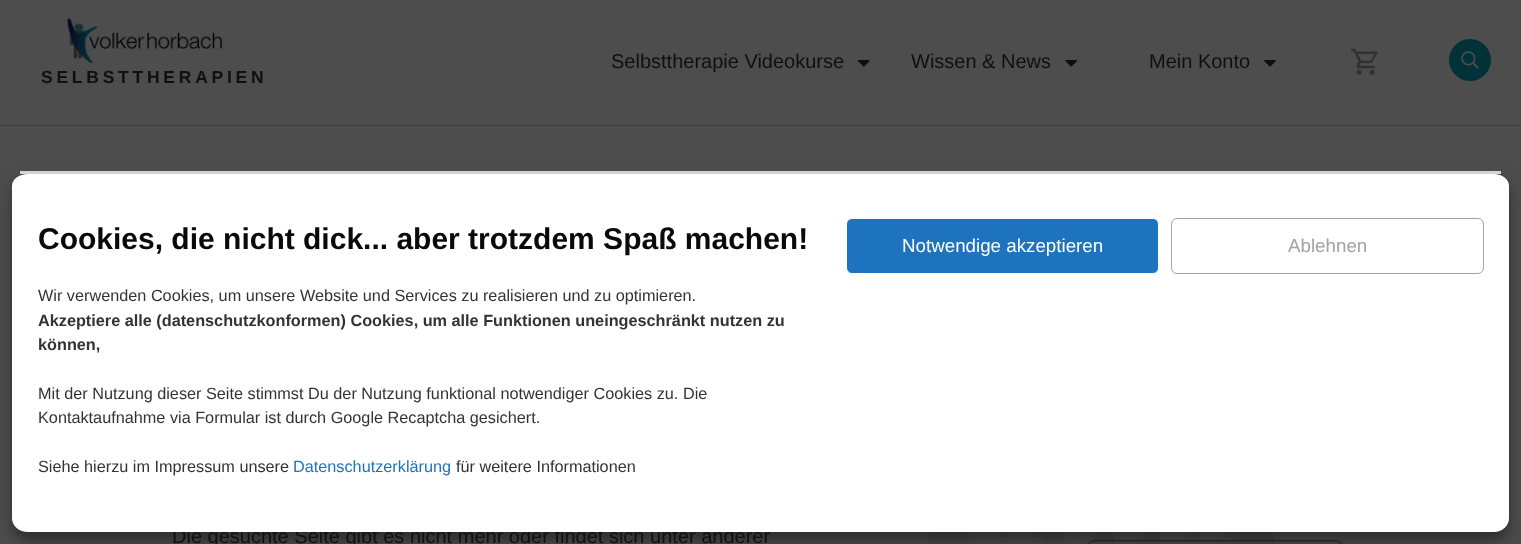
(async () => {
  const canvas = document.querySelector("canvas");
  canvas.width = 1521;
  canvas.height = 544;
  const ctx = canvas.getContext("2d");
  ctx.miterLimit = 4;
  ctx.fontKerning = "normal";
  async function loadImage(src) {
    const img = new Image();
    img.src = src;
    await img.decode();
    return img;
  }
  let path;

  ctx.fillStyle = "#4d4d4d";
  ctx.fillRect(0, 0, 1521, 544);
  ctx.fillStyle = "#3b3b3b";
  ctx.fillRect(0, 125, 1521, 1);
  ctx.drawImage(await loadImage("img/1.png"), 858, 60, 12, 7);
  ctx.drawImage(await loadImage("img/2.png"), 1065, 60, 12, 7);
  ctx.drawImage(await loadImage("img/3.png"), 1264, 60, 12, 7);
  ctx.drawImage(await loadImage("img/4.png"), 1351, 48, 27, 27);
  ctx.fillStyle = "#003238";
  ctx.beginPath();
  ctx.arc(1470, 60, 21, 0, Math.PI * 2);
  ctx.fill();
  ctx.drawImage(await loadImage("img/5.png"), 1461, 51, 18, 18);
  ctx.drawImage(await loadImage("img/6.png"), 67, 18, 156, 45);
  ctx.drawImage(await loadImage("img/7.png"), 926, 532, 418, 12);
  ctx.fillStyle = "rgba(0, 0, 0, 0.23)";
  ctx.filter = "blur(4px)";
  ctx.beginPath();
  ctx.roundRect(13, 179, 1496, 361, 15);
  ctx.fill();
  ctx.filter = "none";
  ctx.fillStyle = "rgba(0, 0, 0, 0.19)";
  ctx.filter = "blur(12.5px)";
  ctx.beginPath();
  ctx.roundRect(13, 184, 1496, 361, 15);
  ctx.fill();
  ctx.filter = "none";
  ctx.fillStyle = "#d3d3d3";
  ctx.fillRect(20, 171, 1481, 3);
  ctx.font = "20px Liberation Sans";
  ctx.fillStyle = "#101010";
  for (const [text, x, y] of [
    ["Selbsttherapie Videokurse", 611, 68],
    ["Wissen & News", 911, 68],
    ["Mein Konto", 1149, 68],
  ]) {
    ctx.fillText(text, x, y);
  }
  ctx.letterSpacing = "3.75px";
  ctx.font = "bold 17.5px Liberation Sans";
  ctx.fillText("SELBSTTHERAPIEN", 41, 83);
  ctx.letterSpacing = "0px";
  ctx.font = "20px Liberation Sans";
  ctx.fillText("Die gesuchte Seite gibt es nicht mehr oder findet sich unter anderer", 172, 543);
  ctx.fillStyle = "#ffffff";
  path = new Path2D("M28 174H1494C1502 174 1509 179 1509 186V518C1509 526 1502 532 1494 532H28C19 532 12 526 12 518V186C12 179 19 174 28 174Z");
  ctx.fill(path);
  ctx.font = "bold 30px Liberation Sans";
  ctx.fillStyle = "#0a0a0a";
  ctx.fillText("Cookies, die nicht dick... aber trotzdem Spaß machen!", 38, 249);
  ctx.font = "16.25px Liberation Sans";
  ctx.fillStyle = "#333333";
  ctx.fillText("Wir verwenden Cookies, um unsere Website und Services zu realisieren und zu optimieren.", 38, 301);
  ctx.font = "bold 16.25px Liberation Sans";
  ctx.fillText("Akzeptiere alle (datenschutzkonformen) Cookies, um alle Funktionen uneingeschränkt nutzen zu", 38, 326);
  ctx.fillText("können,", 38, 350);
  ctx.font = "16.25px Liberation Sans";
  for (const [text, x, y] of [
    ["Mit der Nutzung dieser Seite stimmst Du der Nutzung funktional notwendiger Cookies zu. Die", 38, 399],
    ["Kontaktaufnahme via Formular ist durch Google Recaptcha gesichert.", 38, 423],
    ["Siehe hierzu im Impressum unsere", 38, 472],
  ]) {
    ctx.fillText(text, x, y);
  }
  ctx.fillStyle = "#1e73be";
  ctx.fillText("Datenschutzerklärung", 293, 472);
  ctx.fillStyle = "#333333";
  ctx.fillText("für weitere Informationen", 456, 472);
  ctx.fillStyle = "#1e73be";
  ctx.beginPath();
  ctx.roundRect(846.5, 218.5, 312, 55, 5.5);
  ctx.fill();
  ctx.strokeStyle = "#ffffff";
  ctx.stroke();
  ctx.font = "18.75px Liberation Sans";
  ctx.fillStyle = "#ffffff";
  ctx.fillText("Notwendige akzeptieren", 902, 252);
  ctx.beginPath();
  ctx.roundRect(1171.5, 218.5, 312, 55, 5.5);
  ctx.strokeStyle = "#a3a3a3";
  ctx.stroke();
  ctx.fillStyle = "#a3a3a3";
  ctx.fillText("Ablehnen", 1288, 252);
})();
